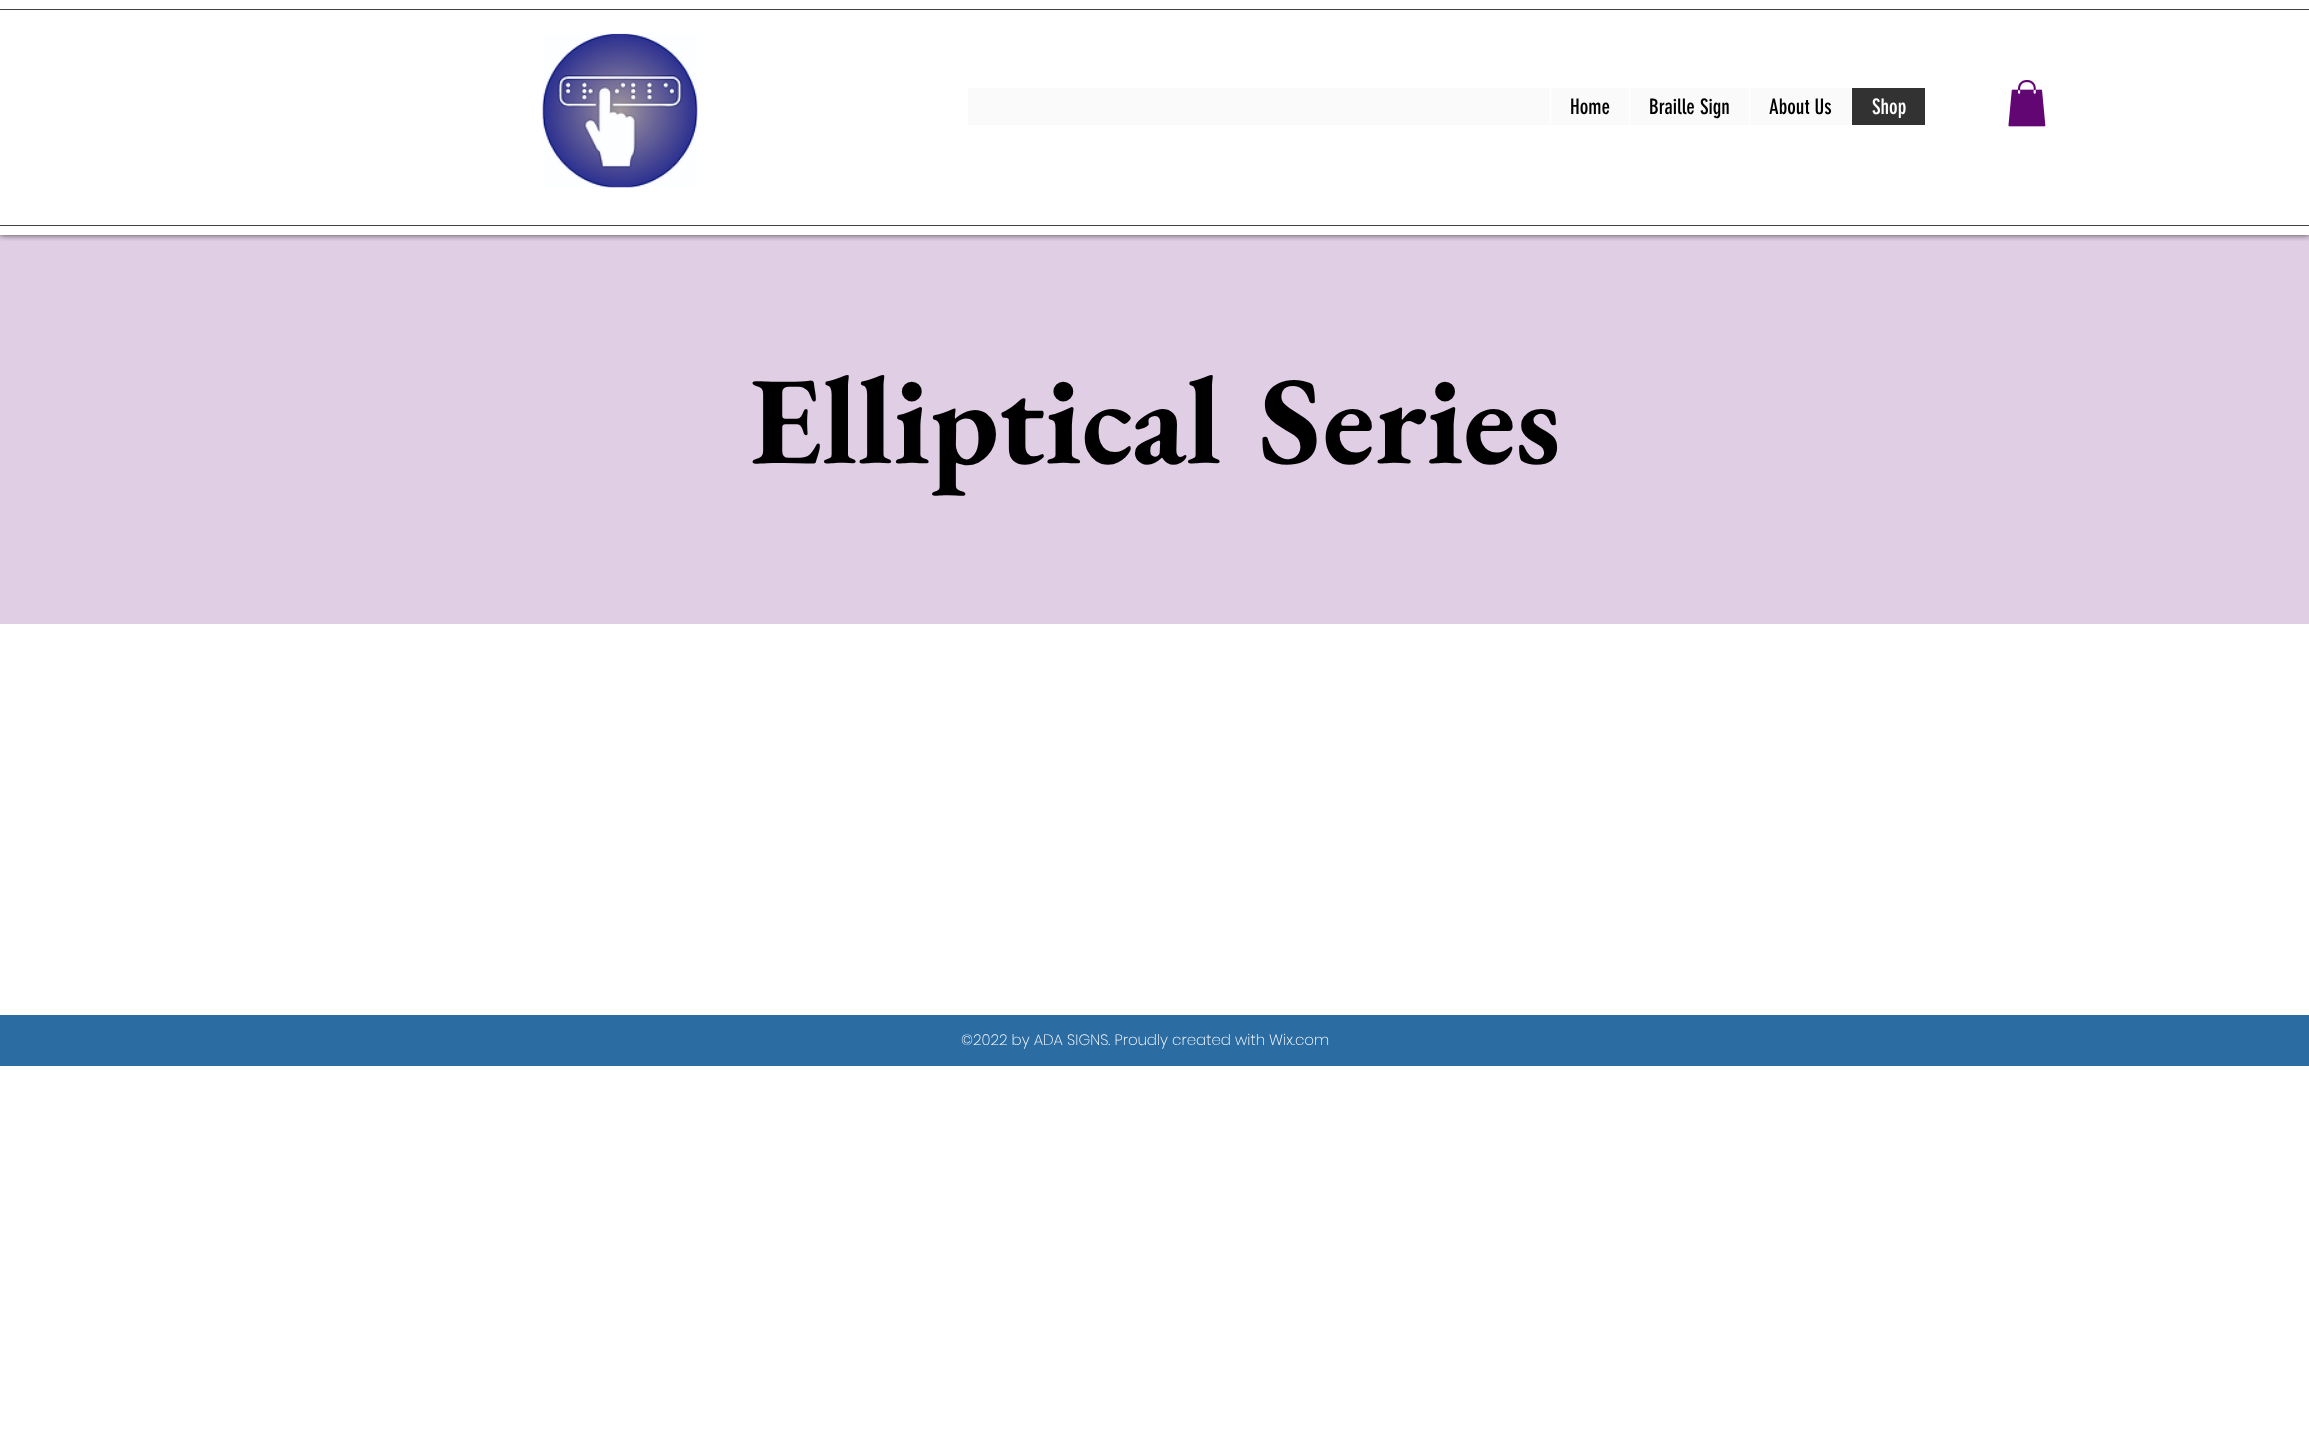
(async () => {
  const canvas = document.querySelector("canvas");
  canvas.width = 2309;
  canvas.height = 1447;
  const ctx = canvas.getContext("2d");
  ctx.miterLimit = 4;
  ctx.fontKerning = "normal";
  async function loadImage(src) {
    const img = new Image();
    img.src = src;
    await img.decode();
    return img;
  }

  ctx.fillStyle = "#ffffff";
  ctx.fillRect(0, 0, 2309, 1447);
  ctx.fillStyle = "#e0cee4";
  ctx.fillRect(0, 235, 2309, 389);
  ctx.save();
  ctx.beginPath();
  ctx.rect(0, 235, 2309, 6);
  ctx.clip();
  ctx.fillStyle = "rgba(0, 0, 0, 0.7)";
  ctx.filter = "blur(3px)";
  ctx.beginPath();
  ctx.rect(0, 0, 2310, 235);
  ctx.fill();
  ctx.filter = "none";
  ctx.restore();
  ctx.fillStyle = "#404040";
  ctx.fillRect(0, 9, 2309, 1);
  ctx.fillRect(0, 225, 2309, 1);
  ctx.drawImage(await loadImage("img/1.png"), 542, 33, 156, 155);
  for (const [x, y, w, h, color] of [
    [968, 88, 883, 37, "#fafafa"],
    [1550, 88, 1, 37, "#ffffff"],
    [1629, 88, 1, 37, "#ffffff"],
    [1749, 88, 1, 37, "#ffffff"],
    [1852, 88, 73, 37, "#323232"],
  ]) {
    ctx.fillStyle = color;
    ctx.fillRect(x, y, w, h);
  }
  ctx.drawImage(await loadImage("img/2.png"), 2008, 80, 38, 47);
  ctx.fillStyle = "#2b6ca3";
  ctx.fillRect(0, 1015, 2309, 51);
  ctx.font = "21px 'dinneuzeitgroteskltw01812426'";
  ctx.fillStyle = "#000000";
  for (const [text, x, y] of [
    ["Home", 1570, 114],
    ["Braille Sign", 1649, 114],
    ["About Us", 1769, 114],
  ]) {
    ctx.fillText(text, x, y);
  }
  ctx.fillStyle = "#ffffff";
  ctx.fillText("Shop", 1872, 114);
  ctx.font = "bold 125px EB Garamond";
  ctx.fillStyle = "#000000";
  ctx.fillText("Elliptical Series", 750, 463);
  ctx.font = "200 15px Poppins";
  ctx.fillStyle = "#ffffff";
  ctx.fillText("©2022 by ADA SIGNS. Proudly created with Wix.com", 961, 1045);
})();
